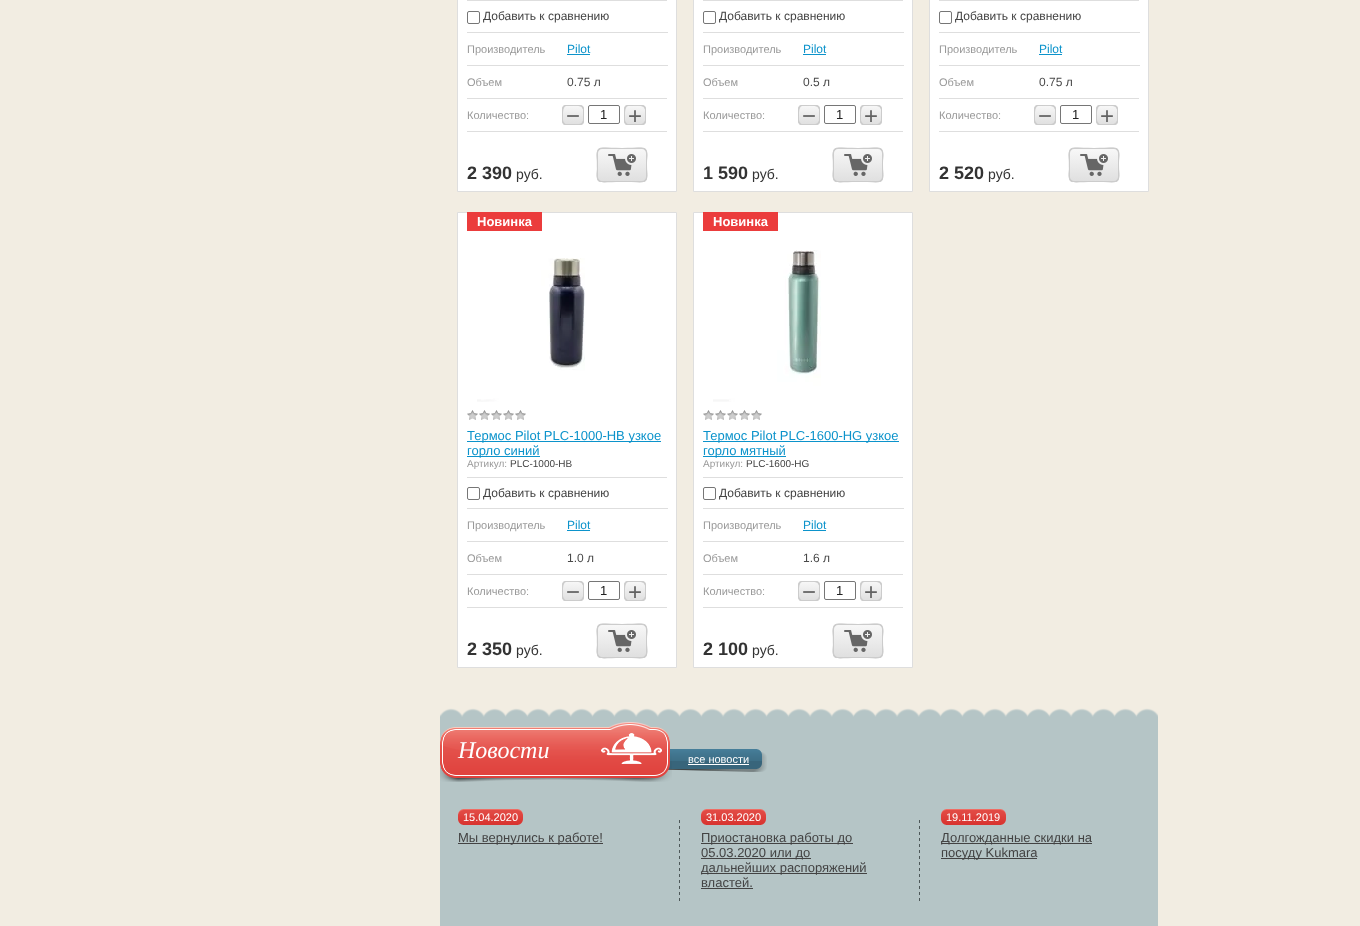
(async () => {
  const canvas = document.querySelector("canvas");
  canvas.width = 1360;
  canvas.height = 926;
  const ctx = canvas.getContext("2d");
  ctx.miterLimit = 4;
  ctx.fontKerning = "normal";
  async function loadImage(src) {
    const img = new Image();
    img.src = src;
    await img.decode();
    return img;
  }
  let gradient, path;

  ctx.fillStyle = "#f2ede2";
  ctx.fillRect(0, 0, 1360, 926);
  ctx.fillStyle = "#ffffff";
  ctx.beginPath();
  ctx.rect(457.5, -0.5, 219, 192);
  ctx.fill();
  ctx.strokeStyle = "#dedede";
  ctx.stroke();
  ctx.fillStyle = "#dedede";
  ctx.fillRect(467, 0, 200, 1);
  ctx.beginPath();
  ctx.roundRect(467.5, 11.5, 12, 12, 1.5);
  ctx.strokeStyle = "#767676";
  ctx.stroke();
  for (const [x, y, w, h, color] of [
    [467, 32, 201, 1, "#dedede"],
    [567, 54, 23, 1, "#0c93cb"],
    [467, 65, 201, 1, "#dedede"],
    [467, 98, 200, 1, "#dedede"],
  ]) {
    ctx.fillStyle = color;
    ctx.fillRect(x, y, w, h);
  }
  gradient = ctx.createLinearGradient(573, 105, 573, 125);
  gradient.addColorStop(0, "#f8f8f8");
  gradient.addColorStop(1, "#dfdfdf");
  ctx.fillStyle = gradient;
  ctx.beginPath();
  ctx.roundRect(562, 105, 22, 20, 4);
  ctx.fill();
  ctx.fillStyle = "#cccccc";
  path = new Path2D("M564 105.5C563 106.5 562 107.5 562 109V121C562 123 564 125 566 125H580C581.5 125 583 124 583.5 123C581 125 575.5 124 573 124H565.5L564.5 123C563.5 122 563 121 563 119.5V109C563 108 563.5 106.5 564 105.5Z");
  ctx.fill(path);
  path = new Path2D("M565 106C568.5 106 579.5 105 581.5 107L583 109.5C583 111 583 119.5 583 122C583 123 582.5 124 582 124.5C583 124 584 122.5 584 121V109C584 107 582 105 580 105H566C564.5 105 563.5 105.5 562.5 106.5C563.5 106.5 564 106 565 106Z");
  ctx.fill(path);
  path = new Path2D("M562.5 123.5C563.5 124.5 564.5 125 566 125H580C582 125 584 123 584 121V109C584 107.5 583 106 582 105.5C582.5 106 583 107 583 108C583 110.5 583 119 583 120.5L581.5 123C579.5 125 574 124 571 124C569 124 564.5 124.5 562.5 123.5Z");
  ctx.fill(path);
  path = new Path2D("M567 106C570 106 581 105 583.5 107C583 106 581.5 105 580 105H566C564 105 562 107 562 109V121C562 122.5 563 123.5 564 124.5C562.5 122.5 562.5 110 564 108C564.5 106.5 565.5 106 567 106Z");
  ctx.fill(path);
  ctx.beginPath();
  ctx.roundRect(588.5, 105.5, 31, 18, 1.5);
  ctx.stroke();
  gradient = ctx.createLinearGradient(635, 105, 635, 125);
  gradient.addColorStop(0, "#f8f8f8");
  gradient.addColorStop(1, "#dfdfdf");
  ctx.fillStyle = gradient;
  ctx.beginPath();
  ctx.roundRect(624, 105, 22, 20, 4);
  ctx.fill();
  ctx.fillStyle = "#cccccc";
  path = new Path2D("M626 105.5C625 106.5 624 107.5 624 109V121C624 123 626 125 628 125H642C643.5 125 645 124 645.5 123C643 125 637.5 124 635 124H627.5L626.5 123C625.5 122 625 121 625 119.5V109C625 108 625.5 106.5 626 105.5Z");
  ctx.fill(path);
  path = new Path2D("M627 106C630.5 106 641.5 105 643.5 107L645 109.5C645 111 645 119.5 645 122C645 123 644.5 124 644 124.5C645 124 646 122.5 646 121V109C646 107 644 105 642 105H628C626.5 105 625.5 105.5 624.5 106.5C625.5 106.5 626 106 627 106Z");
  ctx.fill(path);
  path = new Path2D("M624.5 123.5C625.5 124.5 626.5 125 628 125H642C644 125 646 123 646 121V109C646 107.5 645 106 644 105.5C644.5 106 645 107 645 108C645 110.5 645 119 645 120.5L643.5 123C641.5 125 636 124 633 124C631 124 626.5 124.5 624.5 123.5Z");
  ctx.fill(path);
  path = new Path2D("M629 106C632 106 643 105 645.5 107C645 106 643.5 105 642 105H628C626 105 624 107 624 109V121C624 122.5 625 123.5 626 124.5C624.5 122.5 624.5 110 626 108C626.5 106.5 627.5 106 629 106Z");
  ctx.fill(path);
  ctx.fillStyle = "#dedede";
  ctx.fillRect(467, 131, 200, 1);
  gradient = ctx.createLinearGradient(622, 148, 622, 182);
  gradient.addColorStop(0, "#f8f8f8");
  gradient.addColorStop(1, "#dfdfdf");
  ctx.fillStyle = gradient;
  ctx.beginPath();
  ctx.roundRect(597, 148, 50, 34, 4);
  ctx.fill();
  ctx.fillStyle = "#cccccc";
  path = new Path2D("M599 149C595 151 597 158 597 161C597 187 593 182 622 182H636C639 182 645 183 646 180L644 181H602C600 181 598 179 598 177V151Z");
  ctx.fill(path);
  path = new Path2D("M600 149H642C644 149 646 151 646 153V179L645 181C649 179 647 172 647 169C647 143 651 148 622 148H608C605 148 599 147 598 150Z");
  ctx.fill(path);
  path = new Path2D("M598 180C599 183 605 182 608 182H622C651 182 647 187 647 161C647 158 649 151 645 149L646 151V177C646 179 644 181 642 181H600Z");
  ctx.fill(path);
  path = new Path2D("M602 149H644L646 150C645 147 639 148 636 148H622C593 148 597 143 597 169C597 172 595 179 599 181L598 179V153C598 151 600 149 602 149Z");
  ctx.fill(path);
  ctx.drawImage(await loadImage("img/1.png"), 608, 154, 28, 22);
  ctx.fillStyle = "#ffffff";
  ctx.beginPath();
  ctx.rect(693.5, -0.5, 219, 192);
  ctx.fill();
  ctx.strokeStyle = "#dedede";
  ctx.stroke();
  ctx.fillStyle = "#dedede";
  ctx.fillRect(703, 0, 200, 1);
  ctx.beginPath();
  ctx.roundRect(703.5, 11.5, 12, 12, 1.5);
  ctx.strokeStyle = "#767676";
  ctx.stroke();
  for (const [x, y, w, h, color] of [
    [703, 32, 201, 1, "#dedede"],
    [803, 54, 23, 1, "#0c93cb"],
    [703, 65, 201, 1, "#dedede"],
    [703, 98, 200, 1, "#dedede"],
  ]) {
    ctx.fillStyle = color;
    ctx.fillRect(x, y, w, h);
  }
  gradient = ctx.createLinearGradient(809, 105, 809, 125);
  gradient.addColorStop(0, "#f8f8f8");
  gradient.addColorStop(1, "#dfdfdf");
  ctx.fillStyle = gradient;
  ctx.beginPath();
  ctx.roundRect(798, 105, 22, 20, 4);
  ctx.fill();
  ctx.fillStyle = "#cccccc";
  path = new Path2D("M800 105.5C799 106.5 798 107.5 798 109V121C798 123 800 125 802 125H816C817.5 125 819 124 819.5 123C817 125 811.5 124 809 124H801.5L800.5 123C799.5 122 799 121 799 119.5V109C799 108 799.5 106.5 800 105.5Z");
  ctx.fill(path);
  path = new Path2D("M801 106C804.5 106 815.5 105 817.5 107L819 109.5C819 111 819 119.5 819 122C819 123 818.5 124 818 124.5C819 124 820 122.5 820 121V109C820 107 818 105 816 105H802C800.5 105 799.5 105.5 798.5 106.5C799.5 106.5 800 106 801 106Z");
  ctx.fill(path);
  path = new Path2D("M798.5 123.5C799.5 124.5 800.5 125 802 125H816C818 125 820 123 820 121V109C820 107.5 819 106 818 105.5C818.5 106 819 107 819 108C819 110.5 819 119 819 120.5L817.5 123C815.5 125 810 124 807 124C805 124 800.5 124.5 798.5 123.5Z");
  ctx.fill(path);
  path = new Path2D("M803 106C806 106 817 105 819.5 107C819 106 817.5 105 816 105H802C800 105 798 107 798 109V121C798 122.5 799 123.5 800 124.5C798.5 122.5 798.5 110 800 108C800.5 106.5 801.5 106 803 106Z");
  ctx.fill(path);
  ctx.beginPath();
  ctx.roundRect(824.5, 105.5, 31, 18, 1.5);
  ctx.stroke();
  gradient = ctx.createLinearGradient(871, 105, 871, 125);
  gradient.addColorStop(0, "#f8f8f8");
  gradient.addColorStop(1, "#dfdfdf");
  ctx.fillStyle = gradient;
  ctx.beginPath();
  ctx.roundRect(860, 105, 22, 20, 4);
  ctx.fill();
  ctx.fillStyle = "#cccccc";
  path = new Path2D("M862 105.5C861 106.5 860 107.5 860 109V121C860 123 862 125 864 125H878C879.5 125 881 124 881.5 123C879 125 873.5 124 871 124H863.5L862.5 123C861.5 122 861 121 861 119.5V109C861 108 861.5 106.5 862 105.5Z");
  ctx.fill(path);
  path = new Path2D("M863 106C866.5 106 877.5 105 879.5 107L881 109.5C881 111 881 119.5 881 122C881 123 880.5 124 880 124.5C881 124 882 122.5 882 121V109C882 107 880 105 878 105H864C862.5 105 861.5 105.5 860.5 106.5C861.5 106.5 862 106 863 106Z");
  ctx.fill(path);
  path = new Path2D("M860.5 123.5C861.5 124.5 862.5 125 864 125H878C880 125 882 123 882 121V109C882 107.5 881 106 880 105.5C880.5 106 881 107 881 108C881 110.5 881 119 881 120.5L879.5 123C877.5 125 872 124 869 124C867 124 862.5 124.5 860.5 123.5Z");
  ctx.fill(path);
  path = new Path2D("M865 106C868 106 879 105 881.5 107C881 106 879.5 105 878 105H864C862 105 860 107 860 109V121C860 122.5 861 123.5 862 124.5C860.5 122.5 860.5 110 862 108C862.5 106.5 863.5 106 865 106Z");
  ctx.fill(path);
  ctx.fillStyle = "#dedede";
  ctx.fillRect(703, 131, 200, 1);
  gradient = ctx.createLinearGradient(858, 148, 858, 182);
  gradient.addColorStop(0, "#f8f8f8");
  gradient.addColorStop(1, "#dfdfdf");
  ctx.fillStyle = gradient;
  ctx.beginPath();
  ctx.roundRect(833, 148, 50, 34, 4);
  ctx.fill();
  ctx.fillStyle = "#cccccc";
  path = new Path2D("M835 149C831 151 833 158 833 161C833 187 829 182 858 182H872C875 182 881 183 882 180L880 181H838C836 181 834 179 834 177V151Z");
  ctx.fill(path);
  path = new Path2D("M836 149H878C880 149 882 151 882 153V179L881 181C885 179 883 172 883 169C883 143 887 148 858 148H844C841 148 835 147 834 150Z");
  ctx.fill(path);
  path = new Path2D("M834 180C835 183 841 182 844 182H858C887 182 883 187 883 161C883 158 885 151 881 149L882 151V177C882 179 880 181 878 181H836Z");
  ctx.fill(path);
  path = new Path2D("M838 149H880L882 150C881 147 875 148 872 148H858C829 148 833 143 833 169C833 172 831 179 835 181L834 179V153C834 151 836 149 838 149Z");
  ctx.fill(path);
  ctx.drawImage(await loadImage("img/1.png"), 844, 154, 28, 22);
  ctx.fillStyle = "#ffffff";
  ctx.beginPath();
  ctx.rect(929.5, -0.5, 219, 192);
  ctx.fill();
  ctx.strokeStyle = "#dedede";
  ctx.stroke();
  ctx.fillStyle = "#dedede";
  ctx.fillRect(939, 0, 200, 1);
  ctx.beginPath();
  ctx.roundRect(939.5, 11.5, 12, 12, 1.5);
  ctx.strokeStyle = "#767676";
  ctx.stroke();
  for (const [x, y, w, h, color] of [
    [939, 32, 201, 1, "#dedede"],
    [1039, 54, 23, 1, "#0c93cb"],
    [939, 65, 201, 1, "#dedede"],
    [939, 98, 200, 1, "#dedede"],
  ]) {
    ctx.fillStyle = color;
    ctx.fillRect(x, y, w, h);
  }
  gradient = ctx.createLinearGradient(1045, 105, 1045, 125);
  gradient.addColorStop(0, "#f8f8f8");
  gradient.addColorStop(1, "#dfdfdf");
  ctx.fillStyle = gradient;
  ctx.beginPath();
  ctx.roundRect(1034, 105, 22, 20, 4);
  ctx.fill();
  ctx.fillStyle = "#cccccc";
  path = new Path2D("M1036 105.5C1035 106.5 1034 107.5 1034 109V121C1034 123 1036 125 1038 125H1052C1053.5 125 1055 124 1055.5 123C1053 125 1047.5 124 1045 124H1037.5L1036.5 123C1035.5 122 1035 121 1035 119.5V109C1035 108 1035.5 106.5 1036 105.5Z");
  ctx.fill(path);
  path = new Path2D("M1037 106C1040.5 106 1051.5 105 1053.5 107L1055 109.5C1055 111 1055 119.5 1055 122C1055 123 1054.5 124 1054 124.5C1055 124 1056 122.5 1056 121V109C1056 107 1054 105 1052 105H1038C1036.5 105 1035.5 105.5 1034.5 106.5C1035.5 106.5 1036 106 1037 106Z");
  ctx.fill(path);
  path = new Path2D("M1034.5 123.5C1035.5 124.5 1036.5 125 1038 125H1052C1054 125 1056 123 1056 121V109C1056 107.5 1055 106 1054 105.5C1054.5 106 1055 107 1055 108C1055 110.5 1055 119 1055 120.5L1053.5 123C1051.5 125 1046 124 1043 124C1041 124 1036.5 124.5 1034.5 123.5Z");
  ctx.fill(path);
  path = new Path2D("M1039 106C1042 106 1053 105 1055.5 107C1055 106 1053.5 105 1052 105H1038C1036 105 1034 107 1034 109V121C1034 122.5 1035 123.5 1036 124.5C1034.5 122.5 1034.5 110 1036 108C1036.5 106.5 1037.5 106 1039 106Z");
  ctx.fill(path);
  ctx.beginPath();
  ctx.roundRect(1060.5, 105.5, 31, 18, 1.5);
  ctx.stroke();
  gradient = ctx.createLinearGradient(1107, 105, 1107, 125);
  gradient.addColorStop(0, "#f8f8f8");
  gradient.addColorStop(1, "#dfdfdf");
  ctx.fillStyle = gradient;
  ctx.beginPath();
  ctx.roundRect(1096, 105, 22, 20, 4);
  ctx.fill();
  ctx.fillStyle = "#cccccc";
  path = new Path2D("M1098 105.5C1097 106.5 1096 107.5 1096 109V121C1096 123 1098 125 1100 125H1114C1115.5 125 1117 124 1117.5 123C1115 125 1109.5 124 1107 124H1099.5L1098.5 123C1097.5 122 1097 121 1097 119.5V109C1097 108 1097.5 106.5 1098 105.5Z");
  ctx.fill(path);
  path = new Path2D("M1099 106C1102.5 106 1113.5 105 1115.5 107L1117 109.5C1117 111 1117 119.5 1117 122C1117 123 1116.5 124 1116 124.5C1117 124 1118 122.5 1118 121V109C1118 107 1116 105 1114 105H1100C1098.5 105 1097.5 105.5 1096.5 106.5C1097.5 106.5 1098 106 1099 106Z");
  ctx.fill(path);
  path = new Path2D("M1096.5 123.5C1097.5 124.5 1098.5 125 1100 125H1114C1116 125 1118 123 1118 121V109C1118 107.5 1117 106 1116 105.5C1116.5 106 1117 107 1117 108C1117 110.5 1117 119 1117 120.5L1115.5 123C1113.5 125 1108 124 1105 124C1103 124 1098.5 124.5 1096.5 123.5Z");
  ctx.fill(path);
  path = new Path2D("M1101 106C1104 106 1115 105 1117.5 107C1117 106 1115.5 105 1114 105H1100C1098 105 1096 107 1096 109V121C1096 122.5 1097 123.5 1098 124.5C1096.5 122.5 1096.5 110 1098 108C1098.5 106.5 1099.5 106 1101 106Z");
  ctx.fill(path);
  ctx.fillStyle = "#dedede";
  ctx.fillRect(939, 131, 200, 1);
  gradient = ctx.createLinearGradient(1094, 148, 1094, 182);
  gradient.addColorStop(0, "#f8f8f8");
  gradient.addColorStop(1, "#dfdfdf");
  ctx.fillStyle = gradient;
  ctx.beginPath();
  ctx.roundRect(1069, 148, 50, 34, 4);
  ctx.fill();
  ctx.fillStyle = "#cccccc";
  path = new Path2D("M1071 149C1067 151 1069 158 1069 161C1069 187 1065 182 1094 182H1108C1111 182 1117 183 1118 180L1116 181H1074C1072 181 1070 179 1070 177V151Z");
  ctx.fill(path);
  path = new Path2D("M1072 149H1114C1116 149 1118 151 1118 153V179L1117 181C1121 179 1119 172 1119 169C1119 143 1123 148 1094 148H1080C1077 148 1071 147 1070 150Z");
  ctx.fill(path);
  path = new Path2D("M1070 180C1071 183 1077 182 1080 182H1094C1123 182 1119 187 1119 161C1119 158 1121 151 1117 149L1118 151V177C1118 179 1116 181 1114 181H1072Z");
  ctx.fill(path);
  path = new Path2D("M1074 149H1116L1118 150C1117 147 1111 148 1108 148H1094C1065 148 1069 143 1069 169C1069 172 1067 179 1071 181L1070 179V153C1070 151 1072 149 1074 149Z");
  ctx.fill(path);
  ctx.drawImage(await loadImage("img/1.png"), 1080, 154, 28, 22);
  ctx.fillStyle = "#ffffff";
  ctx.beginPath();
  ctx.rect(457.5, 212.5, 219, 455);
  ctx.fill();
  ctx.strokeStyle = "#dedede";
  ctx.stroke();
  ctx.fillStyle = "#eb3c3c";
  ctx.fillRect(467, 212, 75, 19);
  ctx.drawImage(await loadImage("img/2.png"), 477, 258, 108, 144);
  ctx.drawImage(await loadImage("img/3.png"), 467, 410, 59, 10);
  for (const [x, y, w, h, color] of [
    [467, 441, 194, 1, "#0c93cb"],
    [467, 456, 73, 1, "#0c93cb"],
    [467, 477, 200, 1, "#dedede"],
  ]) {
    ctx.fillStyle = color;
    ctx.fillRect(x, y, w, h);
  }
  ctx.beginPath();
  ctx.roundRect(467.5, 487.5, 12, 12, 1.5);
  ctx.strokeStyle = "#767676";
  ctx.stroke();
  for (const [x, y, w, h, color] of [
    [467, 508, 201, 1, "#dedede"],
    [567, 530, 23, 1, "#0c93cb"],
    [467, 541, 201, 1, "#dedede"],
    [467, 574, 200, 1, "#dedede"],
  ]) {
    ctx.fillStyle = color;
    ctx.fillRect(x, y, w, h);
  }
  gradient = ctx.createLinearGradient(573, 581, 573, 601);
  gradient.addColorStop(0, "#f8f8f8");
  gradient.addColorStop(1, "#dfdfdf");
  ctx.fillStyle = gradient;
  ctx.beginPath();
  ctx.roundRect(562, 581, 22, 20, 4);
  ctx.fill();
  ctx.fillStyle = "#cccccc";
  path = new Path2D("M564 581.5C563 582.5 562 583.5 562 585V597C562 599 564 601 566 601H580C581.5 601 583 600 583.5 599C581 601 575.5 600 573 600H565.5L564.5 599C563.5 598 563 597 563 595.5V585C563 584 563.5 582.5 564 581.5Z");
  ctx.fill(path);
  path = new Path2D("M565 582C568.5 582 579.5 581 581.5 583L583 585.5C583 587 583 595.5 583 598C583 599 582.5 600 582 600.5C583 600 584 598.5 584 597V585C584 583 582 581 580 581H566C564.5 581 563.5 581.5 562.5 582.5C563.5 582.5 564 582 565 582Z");
  ctx.fill(path);
  path = new Path2D("M562.5 599.5C563.5 600.5 564.5 601 566 601H580C582 601 584 599 584 597V585C584 583.5 583 582 582 581.5C582.5 582 583 583 583 584C583 586.5 583 595 583 596.5L581.5 599C579.5 601 574 600 571 600C569 600 564.5 600.5 562.5 599.5Z");
  ctx.fill(path);
  path = new Path2D("M567 582C570 582 581 581 583.5 583C583 582 581.5 581 580 581H566C564 581 562 583 562 585V597C562 598.5 563 599.5 564 600.5C562.5 598.5 562.5 586 564 584C564.5 582.5 565.5 582 567 582Z");
  ctx.fill(path);
  ctx.beginPath();
  ctx.roundRect(588.5, 581.5, 31, 18, 1.5);
  ctx.stroke();
  gradient = ctx.createLinearGradient(635, 581, 635, 601);
  gradient.addColorStop(0, "#f8f8f8");
  gradient.addColorStop(1, "#dfdfdf");
  ctx.fillStyle = gradient;
  ctx.beginPath();
  ctx.roundRect(624, 581, 22, 20, 4);
  ctx.fill();
  ctx.fillStyle = "#cccccc";
  path = new Path2D("M626 581.5C625 582.5 624 583.5 624 585V597C624 599 626 601 628 601H642C643.5 601 645 600 645.5 599C643 601 637.5 600 635 600H627.5L626.5 599C625.5 598 625 597 625 595.5V585C625 584 625.5 582.5 626 581.5Z");
  ctx.fill(path);
  path = new Path2D("M627 582C630.5 582 641.5 581 643.5 583L645 585.5C645 587 645 595.5 645 598C645 599 644.5 600 644 600.5C645 600 646 598.5 646 597V585C646 583 644 581 642 581H628C626.5 581 625.5 581.5 624.5 582.5C625.5 582.5 626 582 627 582Z");
  ctx.fill(path);
  path = new Path2D("M624.5 599.5C625.5 600.5 626.5 601 628 601H642C644 601 646 599 646 597V585C646 583.5 645 582 644 581.5C644.5 582 645 583 645 584C645 586.5 645 595 645 596.5L643.5 599C641.5 601 636 600 633 600C631 600 626.5 600.5 624.5 599.5Z");
  ctx.fill(path);
  path = new Path2D("M629 582C632 582 643 581 645.5 583C645 582 643.5 581 642 581H628C626 581 624 583 624 585V597C624 598.5 625 599.5 626 600.5C624.5 598.5 624.5 586 626 584C626.5 582.5 627.5 582 629 582Z");
  ctx.fill(path);
  ctx.fillStyle = "#dedede";
  ctx.fillRect(467, 607, 200, 1);
  gradient = ctx.createLinearGradient(622, 624, 622, 658);
  gradient.addColorStop(0, "#f8f8f8");
  gradient.addColorStop(1, "#dfdfdf");
  ctx.fillStyle = gradient;
  ctx.beginPath();
  ctx.roundRect(597, 624, 50, 34, 4);
  ctx.fill();
  ctx.fillStyle = "#cccccc";
  path = new Path2D("M599 625C595 627 597 634 597 637C597 663 593 658 622 658H636C639 658 645 659 646 656L644 657H602C600 657 598 655 598 653V627Z");
  ctx.fill(path);
  path = new Path2D("M600 625H642C644 625 646 627 646 629V655L645 657C649 655 647 648 647 645C647 619 651 624 622 624H608C605 624 599 623 598 626Z");
  ctx.fill(path);
  path = new Path2D("M598 656C599 659 605 658 608 658H622C651 658 647 663 647 637C647 634 649 627 645 625L646 627V653C646 655 644 657 642 657H600Z");
  ctx.fill(path);
  path = new Path2D("M602 625H644L646 626C645 623 639 624 636 624H622C593 624 597 619 597 645C597 648 595 655 599 657L598 655V629C598 627 600 625 602 625Z");
  ctx.fill(path);
  ctx.drawImage(await loadImage("img/1.png"), 608, 630, 28, 22);
  ctx.fillStyle = "#ffffff";
  ctx.beginPath();
  ctx.rect(693.5, 212.5, 219, 455);
  ctx.fill();
  ctx.strokeStyle = "#dedede";
  ctx.stroke();
  ctx.fillStyle = "#eb3c3c";
  ctx.fillRect(703, 212, 75, 19);
  ctx.drawImage(await loadImage("img/4.png"), 713, 250, 108, 152);
  ctx.drawImage(await loadImage("img/3.png"), 703, 410, 59, 10);
  for (const [x, y, w, h, color] of [
    [703, 441, 196, 1, "#0c93cb"],
    [703, 456, 83, 1, "#0c93cb"],
    [703, 477, 200, 1, "#dedede"],
  ]) {
    ctx.fillStyle = color;
    ctx.fillRect(x, y, w, h);
  }
  ctx.beginPath();
  ctx.roundRect(703.5, 487.5, 12, 12, 1.5);
  ctx.strokeStyle = "#767676";
  ctx.stroke();
  for (const [x, y, w, h, color] of [
    [703, 508, 201, 1, "#dedede"],
    [803, 530, 23, 1, "#0c93cb"],
    [703, 541, 201, 1, "#dedede"],
    [703, 574, 200, 1, "#dedede"],
  ]) {
    ctx.fillStyle = color;
    ctx.fillRect(x, y, w, h);
  }
  gradient = ctx.createLinearGradient(809, 581, 809, 601);
  gradient.addColorStop(0, "#f8f8f8");
  gradient.addColorStop(1, "#dfdfdf");
  ctx.fillStyle = gradient;
  ctx.beginPath();
  ctx.roundRect(798, 581, 22, 20, 4);
  ctx.fill();
  ctx.fillStyle = "#cccccc";
  path = new Path2D("M800 581.5C799 582.5 798 583.5 798 585V597C798 599 800 601 802 601H816C817.5 601 819 600 819.5 599C817 601 811.5 600 809 600H801.5L800.5 599C799.5 598 799 597 799 595.5V585C799 584 799.5 582.5 800 581.5Z");
  ctx.fill(path);
  path = new Path2D("M801 582C804.5 582 815.5 581 817.5 583L819 585.5C819 587 819 595.5 819 598C819 599 818.5 600 818 600.5C819 600 820 598.5 820 597V585C820 583 818 581 816 581H802C800.5 581 799.5 581.5 798.5 582.5C799.5 582.5 800 582 801 582Z");
  ctx.fill(path);
  path = new Path2D("M798.5 599.5C799.5 600.5 800.5 601 802 601H816C818 601 820 599 820 597V585C820 583.5 819 582 818 581.5C818.5 582 819 583 819 584C819 586.5 819 595 819 596.5L817.5 599C815.5 601 810 600 807 600C805 600 800.5 600.5 798.5 599.5Z");
  ctx.fill(path);
  path = new Path2D("M803 582C806 582 817 581 819.5 583C819 582 817.5 581 816 581H802C800 581 798 583 798 585V597C798 598.5 799 599.5 800 600.5C798.5 598.5 798.5 586 800 584C800.5 582.5 801.5 582 803 582Z");
  ctx.fill(path);
  ctx.beginPath();
  ctx.roundRect(824.5, 581.5, 31, 18, 1.5);
  ctx.stroke();
  gradient = ctx.createLinearGradient(871, 581, 871, 601);
  gradient.addColorStop(0, "#f8f8f8");
  gradient.addColorStop(1, "#dfdfdf");
  ctx.fillStyle = gradient;
  ctx.beginPath();
  ctx.roundRect(860, 581, 22, 20, 4);
  ctx.fill();
  ctx.fillStyle = "#cccccc";
  path = new Path2D("M862 581.5C861 582.5 860 583.5 860 585V597C860 599 862 601 864 601H878C879.5 601 881 600 881.5 599C879 601 873.5 600 871 600H863.5L862.5 599C861.5 598 861 597 861 595.5V585C861 584 861.5 582.5 862 581.5Z");
  ctx.fill(path);
  path = new Path2D("M863 582C866.5 582 877.5 581 879.5 583L881 585.5C881 587 881 595.5 881 598C881 599 880.5 600 880 600.5C881 600 882 598.5 882 597V585C882 583 880 581 878 581H864C862.5 581 861.5 581.5 860.5 582.5C861.5 582.5 862 582 863 582Z");
  ctx.fill(path);
  path = new Path2D("M860.5 599.5C861.5 600.5 862.5 601 864 601H878C880 601 882 599 882 597V585C882 583.5 881 582 880 581.5C880.5 582 881 583 881 584C881 586.5 881 595 881 596.5L879.5 599C877.5 601 872 600 869 600C867 600 862.5 600.5 860.5 599.5Z");
  ctx.fill(path);
  path = new Path2D("M865 582C868 582 879 581 881.5 583C881 582 879.5 581 878 581H864C862 581 860 583 860 585V597C860 598.5 861 599.5 862 600.5C860.5 598.5 860.5 586 862 584C862.5 582.5 863.5 582 865 582Z");
  ctx.fill(path);
  ctx.fillStyle = "#dedede";
  ctx.fillRect(703, 607, 200, 1);
  gradient = ctx.createLinearGradient(858, 624, 858, 658);
  gradient.addColorStop(0, "#f8f8f8");
  gradient.addColorStop(1, "#dfdfdf");
  ctx.fillStyle = gradient;
  ctx.beginPath();
  ctx.roundRect(833, 624, 50, 34, 4);
  ctx.fill();
  ctx.fillStyle = "#cccccc";
  path = new Path2D("M835 625C831 627 833 634 833 637C833 663 829 658 858 658H872C875 658 881 659 882 656L880 657H838C836 657 834 655 834 653V627Z");
  ctx.fill(path);
  path = new Path2D("M836 625H878C880 625 882 627 882 629V655L881 657C885 655 883 648 883 645C883 619 887 624 858 624H844C841 624 835 623 834 626Z");
  ctx.fill(path);
  path = new Path2D("M834 656C835 659 841 658 844 658H858C887 658 883 663 883 637C883 634 885 627 881 625L882 627V653C882 655 880 657 878 657H836Z");
  ctx.fill(path);
  path = new Path2D("M838 625H880L882 626C881 623 875 624 872 624H858C829 624 833 619 833 645C833 648 831 655 835 657L834 655V629C834 627 836 625 838 625Z");
  ctx.fill(path);
  ctx.drawImage(await loadImage("img/1.png"), 844, 630, 28, 22);
  ctx.fillStyle = "#b5c5c6";
  ctx.fillRect(440, 717, 718, 209);
  ctx.drawImage(await loadImage("img/5.png"), 440, 708, 718, 9);
  ctx.drawImage(await loadImage("img/7.png"), 668, 749, 99, 23);
  ctx.drawImage(await loadImage("img/6.png"), 440, 722, 232, 60);
  ctx.fillStyle = "#ffffff";
  ctx.fillRect(688, 764, 61, 1);
  ctx.drawImage(await loadImage("img/8.png"), 458, 809, 65, 16);
  ctx.fillStyle = "#434343";
  ctx.fillRect(458, 843, 145, 1);
  ctx.drawImage(await loadImage("img/9.png"), 679, 820, 1, 81);
  ctx.drawImage(await loadImage("img/8.png"), 701, 809, 65, 16);
  for (const [x, y, w, h, color] of [
    [701, 843, 152, 1, "#434343"],
    [701, 858, 110, 1, "#434343"],
    [701, 873, 166, 1, "#434343"],
    [701, 888, 52, 1, "#434343"],
  ]) {
    ctx.fillStyle = color;
    ctx.fillRect(x, y, w, h);
  }
  ctx.drawImage(await loadImage("img/9.png"), 919, 820, 1, 81);
  ctx.drawImage(await loadImage("img/8.png"), 941, 809, 65, 16);
  ctx.fillRect(941, 843, 151, 1);
  ctx.fillRect(941, 858, 96, 1);
  ctx.font = "12px Liberation Sans";
  ctx.fillText("Добавить к сравнению", 483, 20);
  ctx.font = "11px Liberation Sans";
  ctx.fillStyle = "#999999";
  ctx.fillText("Производитель", 467, 53);
  ctx.font = "12px Liberation Sans";
  ctx.fillStyle = "#0c93cb";
  ctx.fillText("Pilot", 567, 53);
  ctx.font = "11px Liberation Sans";
  ctx.fillStyle = "#999999";
  ctx.fillText("Объем", 467, 86);
  ctx.font = "12px Liberation Sans";
  ctx.fillStyle = "#494949";
  ctx.fillText("0.75 л", 567, 86);
  ctx.font = "11px Liberation Sans";
  ctx.fillStyle = "#999999";
  ctx.fillText("Количество:", 467, 119);
  ctx.font = "24px Liberation Sans";
  ctx.fillStyle = "#626262";
  ctx.fillText("−", 566, 124);
  ctx.font = "13px Liberation Sans";
  ctx.fillStyle = "#222222";
  ctx.fillText("1", 600, 119);
  ctx.font = "24px Liberation Sans";
  ctx.fillStyle = "#626262";
  ctx.fillText("+", 628, 124);
  ctx.font = "bold 18px Liberation Sans";
  ctx.fillStyle = "#333333";
  ctx.fillText("2 390", 467, 179);
  ctx.font = "14px Liberation Sans";
  ctx.fillText("руб.", 516, 179);
  ctx.font = "12px Liberation Sans";
  ctx.fillStyle = "#434343";
  ctx.fillText("Добавить к сравнению", 719, 20);
  ctx.font = "11px Liberation Sans";
  ctx.fillStyle = "#999999";
  ctx.fillText("Производитель", 703, 53);
  ctx.font = "12px Liberation Sans";
  ctx.fillStyle = "#0c93cb";
  ctx.fillText("Pilot", 803, 53);
  ctx.font = "11px Liberation Sans";
  ctx.fillStyle = "#999999";
  ctx.fillText("Объем", 703, 86);
  ctx.font = "12px Liberation Sans";
  ctx.fillStyle = "#494949";
  ctx.fillText("0.5 л", 803, 86);
  ctx.font = "11px Liberation Sans";
  ctx.fillStyle = "#999999";
  ctx.fillText("Количество:", 703, 119);
  ctx.font = "24px Liberation Sans";
  ctx.fillStyle = "#626262";
  ctx.fillText("−", 802, 124);
  ctx.font = "13px Liberation Sans";
  ctx.fillStyle = "#222222";
  ctx.fillText("1", 836, 119);
  ctx.font = "24px Liberation Sans";
  ctx.fillStyle = "#626262";
  ctx.fillText("+", 864, 124);
  ctx.font = "bold 18px Liberation Sans";
  ctx.fillStyle = "#333333";
  ctx.fillText("1 590", 703, 179);
  ctx.font = "14px Liberation Sans";
  ctx.fillText("руб.", 752, 179);
  ctx.font = "12px Liberation Sans";
  ctx.fillStyle = "#434343";
  ctx.fillText("Добавить к сравнению", 955, 20);
  ctx.font = "11px Liberation Sans";
  ctx.fillStyle = "#999999";
  ctx.fillText("Производитель", 939, 53);
  ctx.font = "12px Liberation Sans";
  ctx.fillStyle = "#0c93cb";
  ctx.fillText("Pilot", 1039, 53);
  ctx.font = "11px Liberation Sans";
  ctx.fillStyle = "#999999";
  ctx.fillText("Объем", 939, 86);
  ctx.font = "12px Liberation Sans";
  ctx.fillStyle = "#494949";
  ctx.fillText("0.75 л", 1039, 86);
  ctx.font = "11px Liberation Sans";
  ctx.fillStyle = "#999999";
  ctx.fillText("Количество:", 939, 119);
  ctx.font = "24px Liberation Sans";
  ctx.fillStyle = "#626262";
  ctx.fillText("−", 1038, 124);
  ctx.font = "13px Liberation Sans";
  ctx.fillStyle = "#222222";
  ctx.fillText("1", 1072, 119);
  ctx.font = "24px Liberation Sans";
  ctx.fillStyle = "#626262";
  ctx.fillText("+", 1100, 124);
  ctx.font = "bold 18px Liberation Sans";
  ctx.fillStyle = "#333333";
  ctx.fillText("2 520", 939, 179);
  ctx.font = "14px Liberation Sans";
  ctx.fillText("руб.", 988, 179);
  ctx.font = "bold 13px Liberation Sans";
  ctx.fillStyle = "#ffffff";
  ctx.fillText("Новинка", 477, 226);
  ctx.font = "13px Liberation Sans";
  ctx.fillStyle = "#0c93cb";
  ctx.fillText("Термос Pilot PLС-1000-НВ узкое", 467, 440);
  ctx.fillText("горло синий", 467, 455);
  ctx.font = "10px Liberation Sans";
  ctx.fillStyle = "#999999";
  ctx.fillText("Артикул:", 467, 467);
  ctx.fillStyle = "#434343";
  ctx.fillText("PLС-1000-НВ", 510, 467);
  ctx.font = "12px Liberation Sans";
  ctx.fillText("Добавить к сравнению", 483, 497);
  ctx.font = "11px Liberation Sans";
  ctx.fillStyle = "#999999";
  ctx.fillText("Производитель", 467, 529);
  ctx.font = "12px Liberation Sans";
  ctx.fillStyle = "#0c93cb";
  ctx.fillText("Pilot", 567, 529);
  ctx.font = "11px Liberation Sans";
  ctx.fillStyle = "#999999";
  ctx.fillText("Объем", 467, 562);
  ctx.font = "12px Liberation Sans";
  ctx.fillStyle = "#494949";
  ctx.fillText("1.0 л", 567, 562);
  ctx.font = "11px Liberation Sans";
  ctx.fillStyle = "#999999";
  ctx.fillText("Количество:", 467, 595);
  ctx.font = "24px Liberation Sans";
  ctx.fillStyle = "#626262";
  ctx.fillText("−", 566, 600);
  ctx.font = "13px Liberation Sans";
  ctx.fillStyle = "#222222";
  ctx.fillText("1", 600, 595);
  ctx.font = "24px Liberation Sans";
  ctx.fillStyle = "#626262";
  ctx.fillText("+", 628, 600);
  ctx.font = "bold 18px Liberation Sans";
  ctx.fillStyle = "#333333";
  ctx.fillText("2 350", 467, 655);
  ctx.font = "14px Liberation Sans";
  ctx.fillText("руб.", 516, 655);
  ctx.font = "bold 13px Liberation Sans";
  ctx.fillStyle = "#ffffff";
  ctx.fillText("Новинка", 713, 226);
  ctx.font = "13px Liberation Sans";
  ctx.fillStyle = "#0c93cb";
  ctx.fillText("Термос Pilot PLС-1600-НG узкое", 703, 440);
  ctx.fillText("горло мятный", 703, 455);
  ctx.font = "10px Liberation Sans";
  ctx.fillStyle = "#999999";
  ctx.fillText("Артикул:", 703, 467);
  ctx.fillStyle = "#434343";
  ctx.fillText("PLС-1600-НG", 746, 467);
  ctx.font = "12px Liberation Sans";
  ctx.fillText("Добавить к сравнению", 719, 497);
  ctx.font = "11px Liberation Sans";
  ctx.fillStyle = "#999999";
  ctx.fillText("Производитель", 703, 529);
  ctx.font = "12px Liberation Sans";
  ctx.fillStyle = "#0c93cb";
  ctx.fillText("Pilot", 803, 529);
  ctx.font = "11px Liberation Sans";
  ctx.fillStyle = "#999999";
  ctx.fillText("Объем", 703, 562);
  ctx.font = "12px Liberation Sans";
  ctx.fillStyle = "#494949";
  ctx.fillText("1.6 л", 803, 562);
  ctx.font = "11px Liberation Sans";
  ctx.fillStyle = "#999999";
  ctx.fillText("Количество:", 703, 595);
  ctx.font = "24px Liberation Sans";
  ctx.fillStyle = "#626262";
  ctx.fillText("−", 802, 600);
  ctx.font = "13px Liberation Sans";
  ctx.fillStyle = "#222222";
  ctx.fillText("1", 836, 595);
  ctx.font = "24px Liberation Sans";
  ctx.fillStyle = "#626262";
  ctx.fillText("+", 864, 600);
  ctx.font = "bold 18px Liberation Sans";
  ctx.fillStyle = "#333333";
  ctx.fillText("2 100", 703, 655);
  ctx.font = "14px Liberation Sans";
  ctx.fillText("руб.", 752, 655);
  ctx.font = "italic 24px Liberation Serif";
  ctx.fillStyle = "#ffffff";
  ctx.fillText("Новости", 458, 758);
  ctx.font = "11px Liberation Sans";
  ctx.fillText("все новости", 688, 763);
  ctx.fillText("15.04.2020", 463, 821);
  ctx.font = "13px Liberation Sans";
  ctx.fillStyle = "#434343";
  ctx.fillText("Мы вернулись к работе!", 458, 842);
  ctx.font = "11px Liberation Sans";
  ctx.fillStyle = "#ffffff";
  ctx.fillText("31.03.2020", 706, 821);
  ctx.font = "13px Liberation Sans";
  ctx.fillStyle = "#434343";
  for (const [text, x, y] of [
    ["Приостановка работы до", 701, 842],
    ["05.03.2020 или до", 701, 857],
    ["дальнейших распоряжений", 701, 872],
    ["властей.", 701, 887],
  ]) {
    ctx.fillText(text, x, y);
  }
  ctx.font = "11px Liberation Sans";
  ctx.fillStyle = "#ffffff";
  ctx.fillText("19.11.2019", 946, 821);
  ctx.font = "13px Liberation Sans";
  ctx.fillStyle = "#434343";
  ctx.fillText("Долгожданные скидки на", 941, 842);
  ctx.fillText("посуду Kukmara", 941, 857);
})();
